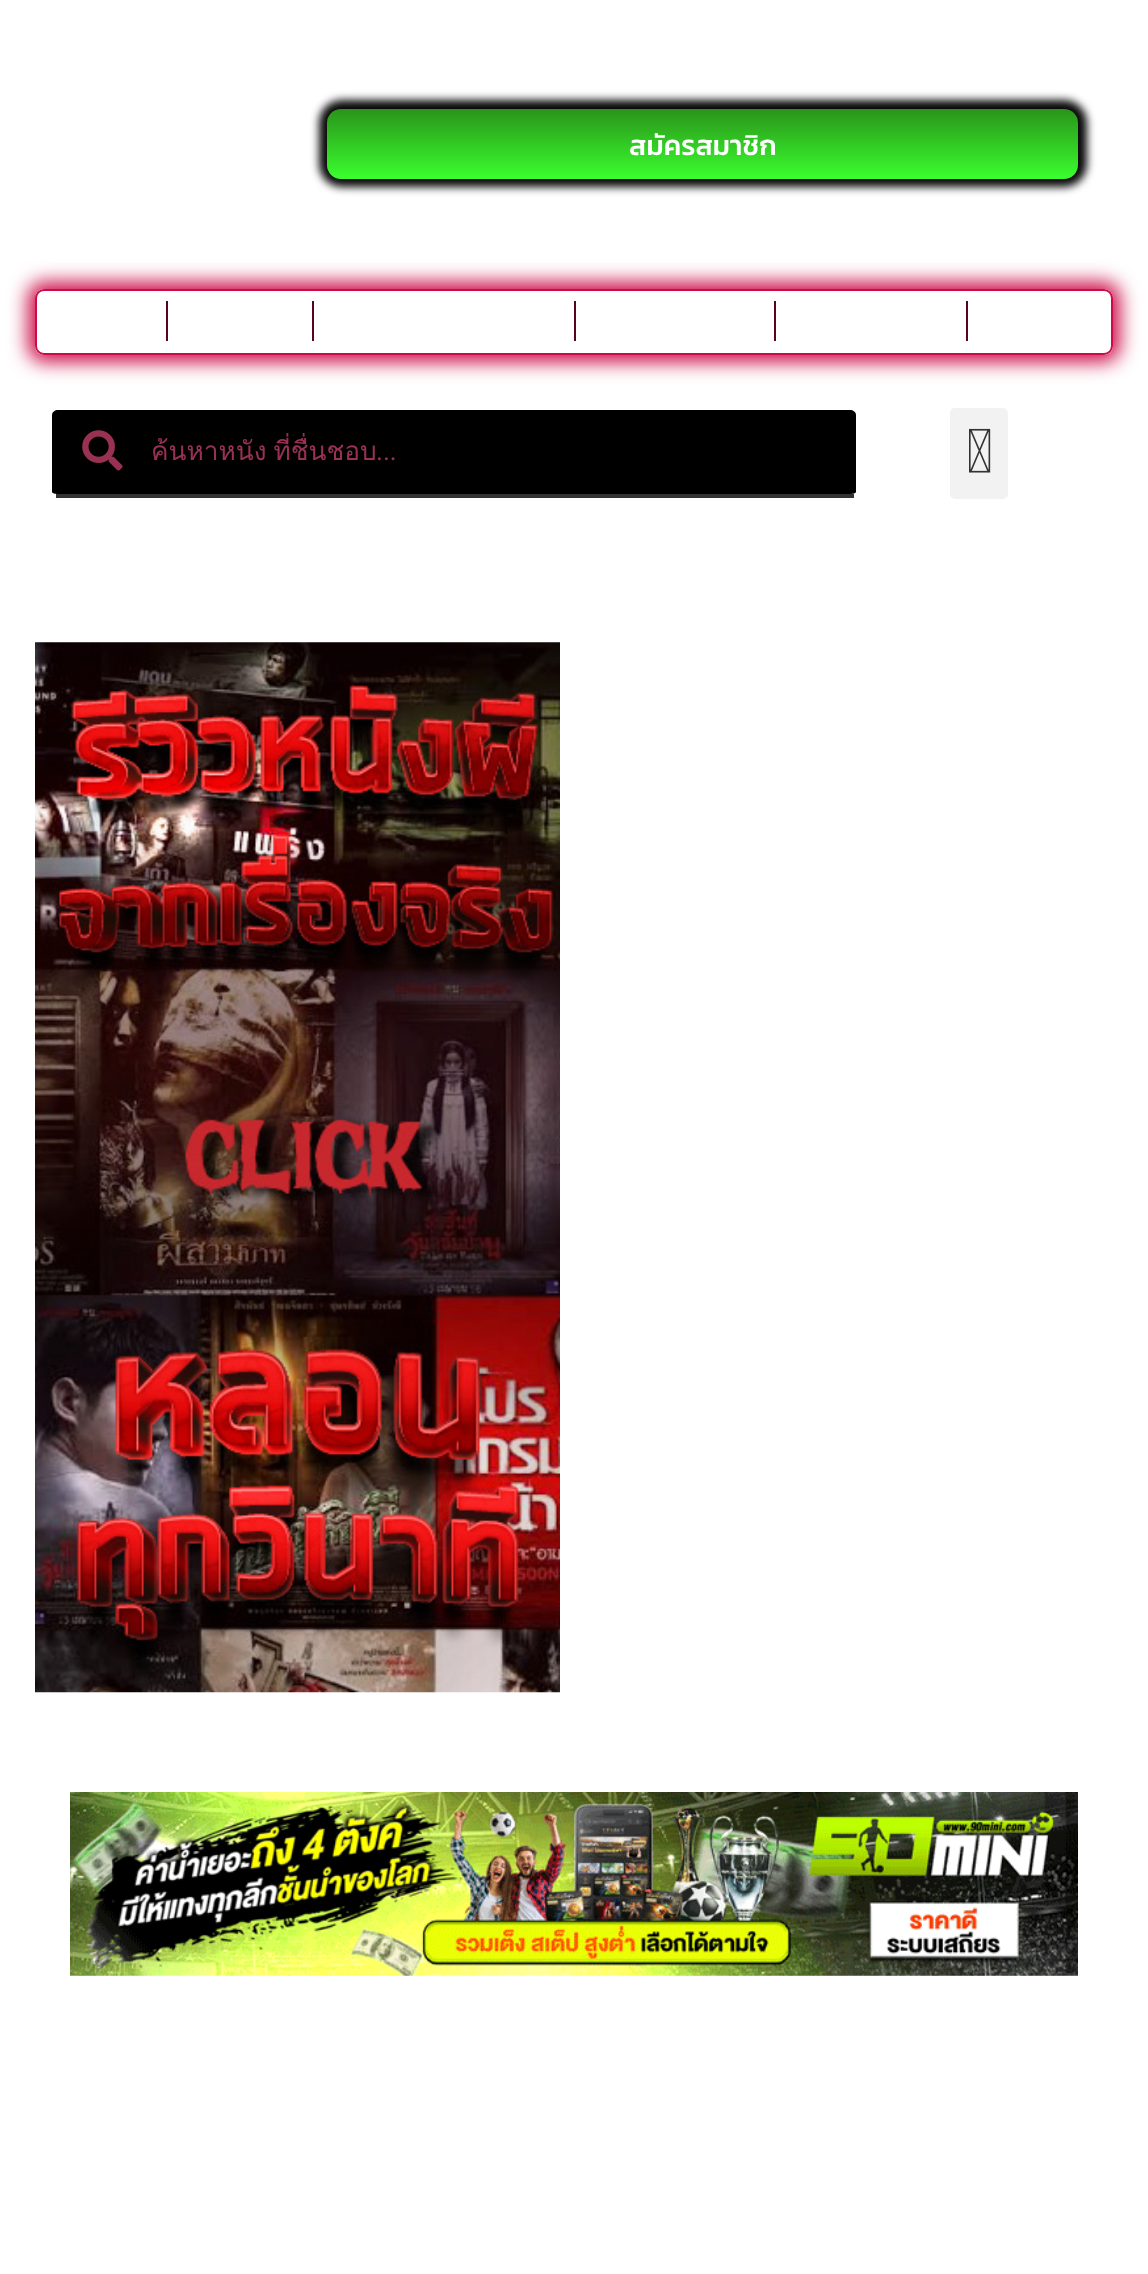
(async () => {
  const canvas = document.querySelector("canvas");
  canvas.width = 1148;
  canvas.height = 2274;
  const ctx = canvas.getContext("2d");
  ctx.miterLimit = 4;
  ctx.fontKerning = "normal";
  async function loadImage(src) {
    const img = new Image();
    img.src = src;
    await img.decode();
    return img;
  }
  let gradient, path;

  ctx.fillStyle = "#ffffff";
  ctx.fillRect(0, 0, 1148, 2274);
  ctx.fillStyle = "rgba(0, 0, 0, 0.97)";
  ctx.filter = "blur(4.5px)";
  ctx.beginPath();
  ctx.roundRect(319, 100, 768, 87, 23);
  ctx.fill();
  ctx.filter = "none";
  gradient = ctx.createLinearGradient(703, 108, 703, 179);
  gradient.addColorStop(0, "#2a921a");
  gradient.addColorStop(1, "#3aff2e");
  ctx.fillStyle = gradient;
  ctx.beginPath();
  ctx.roundRect(327, 109, 751, 70, 14);
  ctx.fill();
  ctx.save();
  path = new Path2D("M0 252H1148V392H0ZM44 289H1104C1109 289 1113 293 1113 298V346C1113 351 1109 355 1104 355H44C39 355 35 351 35 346V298C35 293 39 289 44 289Z");
  ctx.clip(path, "evenodd");
  ctx.fillStyle = "#cc0b47";
  ctx.filter = "blur(9.5px)";
  ctx.beginPath();
  ctx.roundRect(28, 282, 1092, 80, 16);
  ctx.fill();
  ctx.filter = "none";
  ctx.restore();
  ctx.beginPath();
  ctx.roundRect(36, 290, 1076, 64, 8);
  ctx.strokeStyle = "#cc0b47";
  ctx.lineWidth = 2;
  ctx.stroke();
  for (const [x, y, w, h, color] of [
    [166, 301, 2, 40, "#57051e"],
    [312, 301, 2, 40, "#57051e"],
    [574, 301, 2, 40, "#57051e"],
    [774, 301, 2, 40, "#57051e"],
    [966, 301, 2, 40, "#57051e"],
  ]) {
    ctx.fillStyle = color;
    ctx.fillRect(x, y, w, h);
  }
  ctx.fillStyle = "#000000";
  path = new Path2D("M58 410H850C853 410 856 412 856 415V492C856 493 853 494 850 494H58C55 494 52 493 52 492V415C52 412 55 410 58 410Z");
  ctx.fill(path);
  ctx.fillStyle = "#333333";
  ctx.fillRect(56, 494, 798, 4);
  ctx.drawImage(await loadImage("img/1.png"), 82, 430, 41, 41);
  ctx.fillStyle = "#f2f2f2";
  ctx.beginPath();
  ctx.roundRect(950, 408, 58, 91, 5);
  ctx.fill();
  ctx.drawImage(await loadImage("img/2.png"), 969, 428, 22, 45);
  ctx.drawImage(await loadImage("img/3.png"), 35, 642, 525, 1051);
  ctx.drawImage(await loadImage("img/4.png"), 70, 1792, 1008, 184);
  ctx.font = "500 28px Kanit";
  ctx.fillStyle = "#ffffff";
  ctx.fillText("สมัครสมาชิก", 629, 155);
  ctx.save();
  ctx.beginPath();
  ctx.rect(151, 431, 651, 42);
  ctx.clip();
  ctx.wordSpacing = "-2px";
  ctx.font = "26.25px Loma";
  ctx.fillStyle = "#993252";
  ctx.fillText("ค้นหาหนัง ที่ชื่นชอบ", 151, 460);
  ctx.restore();
  ctx.font = "26.25px Roboto";
  ctx.fillStyle = "#993252";
  ctx.fillText("...", 376, 460);
})();
